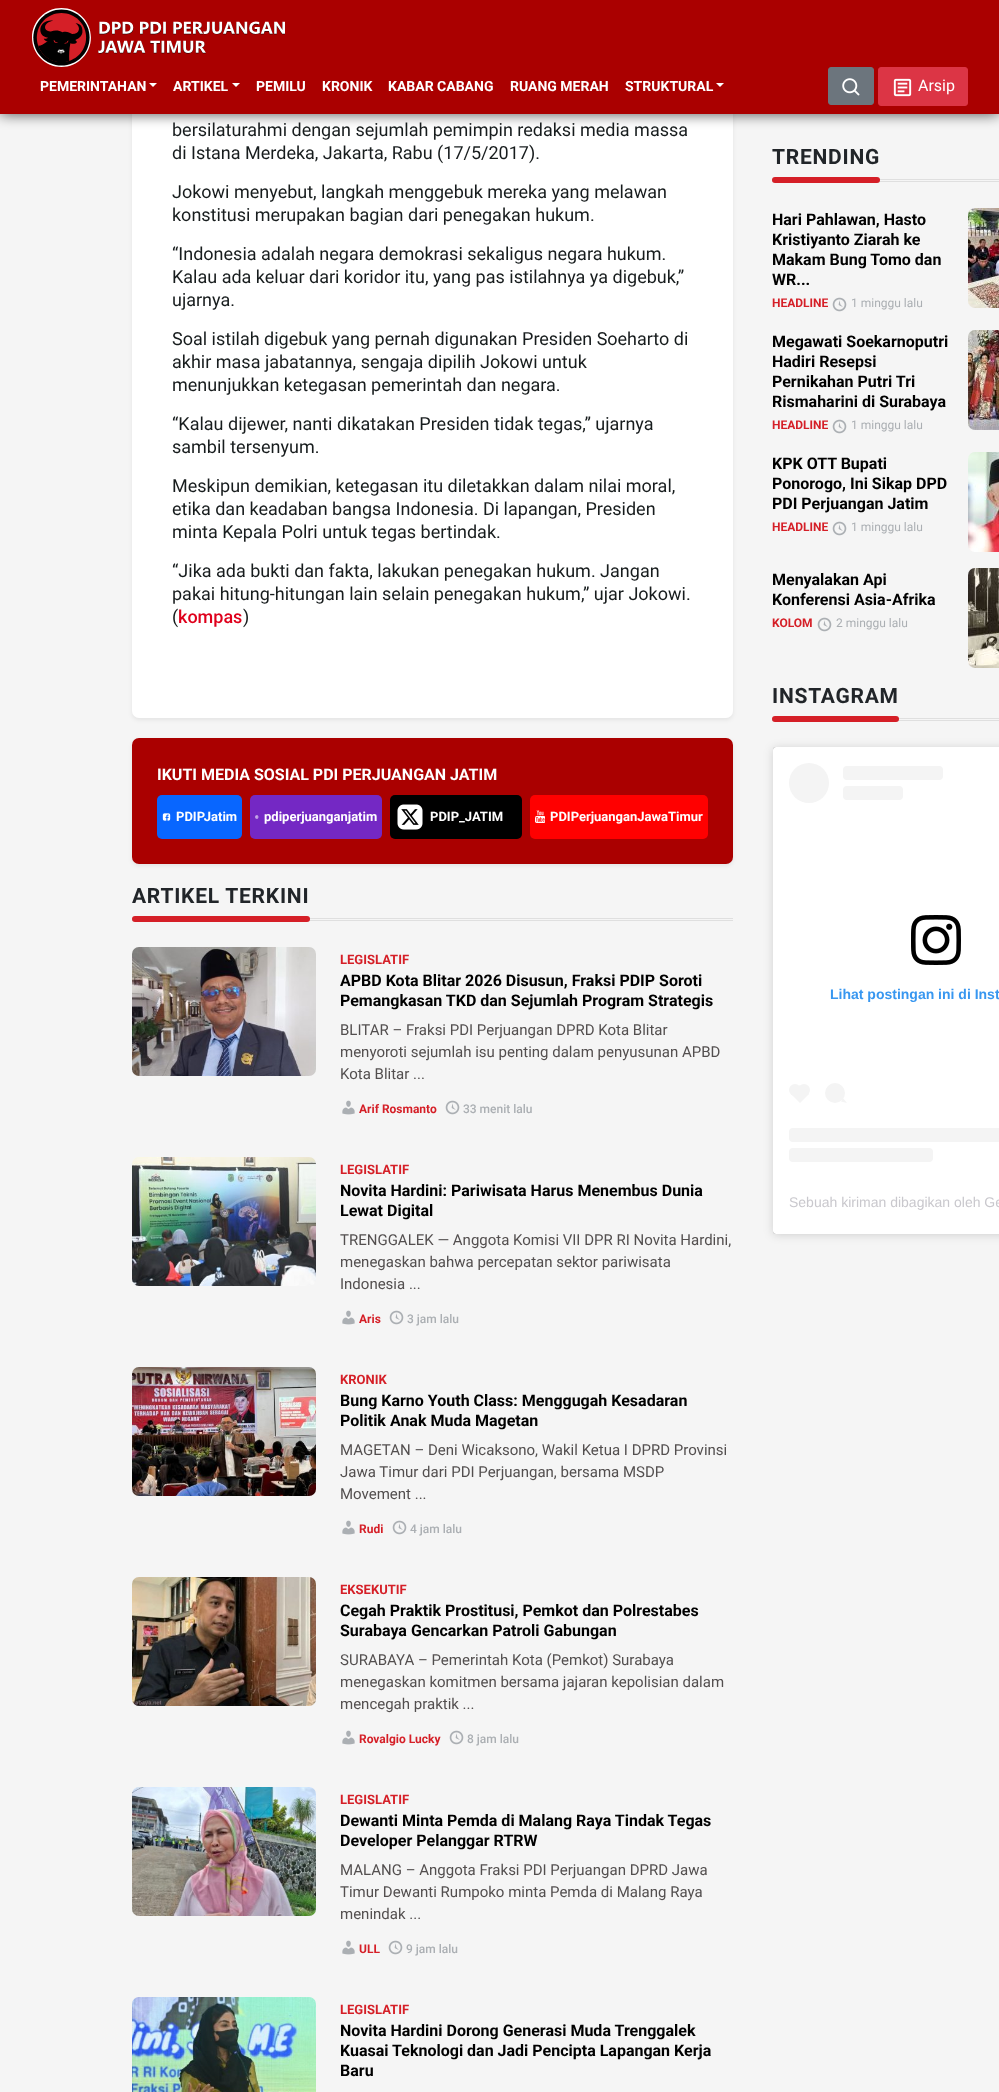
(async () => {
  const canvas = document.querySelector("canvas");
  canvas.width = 999;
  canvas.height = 2092;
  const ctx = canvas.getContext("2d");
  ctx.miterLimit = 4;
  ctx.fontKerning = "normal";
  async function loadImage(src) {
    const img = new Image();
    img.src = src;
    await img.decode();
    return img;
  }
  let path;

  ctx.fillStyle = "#f5f5f5";
  ctx.fillRect(0, 0, 999, 2092);
  ctx.fillStyle = "rgba(0, 0, 0, 0.07)";
  ctx.filter = "blur(2px)";
  ctx.beginPath();
  ctx.roundRect(132, -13, 601, 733, 7);
  ctx.fill();
  ctx.filter = "none";
  ctx.fillStyle = "#ffffff";
  ctx.beginPath();
  ctx.roundRect(132, -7, 601, 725, 7);
  ctx.fill();
  ctx.fillStyle = "#000000";
  ctx.filter = "blur(7.5px)";
  ctx.beginPath();
  ctx.rect(0, 102, 999, 10);
  ctx.fill();
  ctx.filter = "none";
  ctx.fillStyle = "#aa0000";
  ctx.fillRect(0, 0, 999, 114);
  ctx.drawImage(await loadImage("img/1.png"), 32, 8, 253, 59);
  ctx.fillStyle = "#ffffff";
  path = new Path2D("M149 83H157L153 87Z");
  ctx.fill(path);
  path = new Path2D("M232 83H240L236 87Z");
  ctx.fill(path);
  path = new Path2D("M716 83H724L720 87Z");
  ctx.fill(path);
  ctx.fillStyle = "#6c757d";
  ctx.beginPath();
  ctx.roundRect(828.5, 67.5, 45, 37, 2.5);
  ctx.fill();
  ctx.strokeStyle = "#6c757d";
  ctx.stroke();
  ctx.drawImage(await loadImage("img/2.png"), 842, 78, 18, 18);
  ctx.fillStyle = "#dc3545";
  ctx.beginPath();
  ctx.roundRect(878.5, 67.5, 89, 38, 2.5);
  ctx.fill();
  ctx.strokeStyle = "#dc3545";
  ctx.stroke();
  ctx.drawImage(await loadImage("img/3.png"), 893, 78, 19, 19);
  ctx.fillStyle = "rgba(0, 0, 0, 0.07)";
  ctx.filter = "blur(2px)";
  ctx.beginPath();
  ctx.roundRect(132, 740, 601, 126, 7);
  ctx.fill();
  ctx.filter = "none";
  ctx.fillStyle = "#aa0000";
  ctx.beginPath();
  ctx.roundRect(132, 738, 601, 126, 7);
  ctx.fill();
  ctx.fillStyle = "#0866ff";
  ctx.beginPath();
  ctx.roundRect(157, 795, 85, 44, 5);
  ctx.fill();
  ctx.drawImage(await loadImage("img/4.png"), 162, 813, 9, 8);
  ctx.fillStyle = "#7428c4";
  ctx.beginPath();
  ctx.roundRect(250, 795, 132, 44, 5);
  ctx.fill();
  ctx.drawImage(await loadImage("img/5.png"), 255, 815, 4, 4);
  ctx.fillStyle = "#000000";
  ctx.beginPath();
  ctx.roundRect(390, 795, 132, 44, 5);
  ctx.fill();
  ctx.drawImage(await loadImage("img/6.png"), 397, 804, 26, 26);
  ctx.fillStyle = "#ff0000";
  ctx.beginPath();
  ctx.roundRect(530, 795, 178, 44, 5);
  ctx.fill();
  ctx.drawImage(await loadImage("img/7.png"), 535, 810, 10, 13);
  ctx.fillStyle = "#dfdfdf";
  ctx.fillRect(132, 918, 601, 1);
  ctx.fillRect(132, 920, 601, 1);
  ctx.fillStyle = "#d51f27";
  ctx.beginPath();
  ctx.roundRect(132, 916, 178, 6, 3);
  ctx.fill();
  ctx.drawImage(await loadImage("img/8.png"), 132, 947, 184, 129);
  ctx.drawImage(await loadImage("img/9.png"), 342, 1100, 13, 15);
  ctx.drawImage(await loadImage("img/10.png"), 445, 1100, 15, 15);
  ctx.drawImage(await loadImage("img/11.png"), 132, 1157, 184, 129);
  ctx.drawImage(await loadImage("img/9.png"), 342, 1310, 13, 15);
  ctx.drawImage(await loadImage("img/10.png"), 389, 1310, 15, 15);
  ctx.drawImage(await loadImage("img/12.png"), 132, 1367, 184, 129);
  ctx.drawImage(await loadImage("img/9.png"), 342, 1520, 13, 15);
  ctx.drawImage(await loadImage("img/10.png"), 392, 1520, 15, 15);
  ctx.drawImage(await loadImage("img/13.png"), 132, 1577, 184, 129);
  ctx.drawImage(await loadImage("img/9.png"), 342, 1730, 13, 15);
  ctx.drawImage(await loadImage("img/10.png"), 449, 1730, 15, 15);
  ctx.drawImage(await loadImage("img/14.png"), 132, 1787, 184, 129);
  ctx.drawImage(await loadImage("img/9.png"), 342, 1940, 13, 15);
  ctx.drawImage(await loadImage("img/10.png"), 388, 1940, 15, 15);
  ctx.drawImage(await loadImage("img/15.png"), 132, 1997, 184, 95);
  ctx.fillStyle = "#dfdfdf";
  ctx.fillRect(772, 179, 227, 1);
  ctx.fillRect(772, 181, 227, 1);
  ctx.fillStyle = "#d51f27";
  ctx.beginPath();
  ctx.roundRect(772, 177, 108, 6, 3);
  ctx.fill();
  ctx.drawImage(await loadImage("img/10.png"), 832, 297, 15, 15);
  ctx.drawImage(await loadImage("img/16.png"), 968, 208, 31, 100);
  ctx.drawImage(await loadImage("img/10.png"), 832, 419, 15, 15);
  ctx.drawImage(await loadImage("img/17.png"), 968, 330, 31, 100);
  ctx.drawImage(await loadImage("img/10.png"), 832, 521, 15, 15);
  ctx.drawImage(await loadImage("img/18.png"), 968, 452, 31, 100);
  ctx.drawImage(await loadImage("img/10.png"), 817, 617, 15, 15);
  ctx.drawImage(await loadImage("img/19.png"), 968, 568, 31, 100);
  ctx.fillStyle = "#dfdfdf";
  ctx.fillRect(772, 718, 227, 1);
  ctx.fillRect(772, 720, 227, 1);
  ctx.fillStyle = "#d51f27";
  ctx.beginPath();
  ctx.roundRect(772, 716, 127, 6, 3);
  ctx.fill();
  ctx.fillStyle = "rgba(0, 0, 0, 0.15)";
  ctx.filter = "blur(5px)";
  ctx.beginPath();
  ctx.roundRect(773, 748, 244, 487, 3);
  ctx.fill();
  ctx.filter = "none";
  ctx.fillStyle = "rgba(0, 0, 0, 0.5)";
  ctx.filter = "blur(0.5px)";
  ctx.beginPath();
  ctx.roundRect(773, 747, 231, 487, 3);
  ctx.fill();
  ctx.filter = "none";
  ctx.fillStyle = "#ffffff";
  ctx.beginPath();
  ctx.roundRect(773, 747, 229, 487, 3);
  ctx.fill();
  ctx.fillStyle = "#f4f4f4";
  ctx.beginPath();
  ctx.arc(809, 783, 20, 0, Math.PI * 2);
  ctx.fill();
  ctx.beginPath();
  ctx.roundRect(843, 766, 100, 14, 4);
  ctx.fill();
  ctx.beginPath();
  ctx.roundRect(843, 786, 60, 14, 4);
  ctx.fill();
  ctx.drawImage(await loadImage("img/20.png"), 911, 915, 50, 50);
  ctx.beginPath();
  ctx.arc(795, 1090, 6, 0, Math.PI * 2);
  ctx.fill();
  path = new Path2D("M791 1094L800 1085L809 1094L800 1103Z");
  ctx.fill(path);
  ctx.beginPath();
  ctx.arc(804, 1090, 6, 0, Math.PI * 2);
  ctx.fill();
  ctx.beginPath();
  ctx.arc(835, 1093, 10, 0, Math.PI * 2);
  ctx.fill();
  path = new Path2D("M841 1101.5L843 1098L847 1103Z");
  ctx.fill(path);
  ctx.beginPath();
  ctx.roundRect(789, 1128, 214, 14, 4);
  ctx.fill();
  ctx.beginPath();
  ctx.roundRect(789, 1148, 144, 14, 4);
  ctx.fill();
  ctx.font = "bold 14px Roboto";
  ctx.fillStyle = "#ffffff";
  for (const [text, x, y] of [
    ["PEMERINTAHAN", 40, 91],
    ["ARTIKEL", 173, 91],
    ["PEMILU", 256, 91],
    ["KRONIK", 322, 91],
    ["KABAR CABANG", 388, 91],
    ["RUANG MERAH", 510, 91],
    ["STRUKTURAL", 625, 91],
  ]) {
    ctx.fillText(text, x, y);
  }
  ctx.font = "16px Roboto";
  ctx.fillText("Arsip", 918, 91);
  ctx.font = "18px Roboto";
  ctx.fillStyle = "#171c1d";
  for (const [text, x, y] of [
    ["bersilaturahmi dengan sejumlah pemimpin redaksi media massa", 172, 136],
    ["di Istana Merdeka, Jakarta, Rabu (17/5/2017).", 172, 159],
    ["Jokowi menyebut, langkah menggebuk mereka yang melawan", 172, 198],
    ["konstitusi merupakan bagian dari penegakan hukum.", 172, 221],
    ["“Indonesia adalah negara demokrasi sekaligus negara hukum.", 172, 260],
    ["Kalau ada keluar dari koridor itu, yang pas istilahnya ya digebuk,”", 172, 283],
    ["ujarnya.", 172, 306],
    ["Soal istilah digebuk yang pernah digunakan Presiden Soeharto di", 172, 345],
    ["akhir masa jabatannya, sengaja dipilih Jokowi untuk", 172, 368],
    ["menunjukkan ketegasan pemerintah dan negara.", 172, 391],
    ["“Kalau dijewer, nanti dikatakan Presiden tidak tegas,” ujarnya", 172, 430],
    ["sambil tersenyum.", 172, 453],
    ["Meskipun demikian, ketegasan itu diletakkan dalam nilai moral,", 172, 492],
    ["etika dan keadaban bangsa Indonesia. Di lapangan, Presiden", 172, 515],
    ["minta Kepala Polri untuk tegas bertindak.", 172, 538],
    ["“Jika ada bukti dan fakta, lakukan penegakan hukum. Jangan", 172, 577],
    ["pakai hitung-hitungan lain selain penegakan hukum,” ujar Jokowi.", 172, 600],
    ["(", 172, 623],
  ]) {
    ctx.fillText(text, x, y);
  }
  ctx.font = "500 18px Roboto";
  ctx.fillStyle = "#df001c";
  ctx.fillText("kompas", 178, 623);
  ctx.font = "18px Roboto";
  ctx.fillStyle = "#171c1d";
  ctx.fillText(")", 243, 623);
  ctx.font = "bold 16px Roboto";
  ctx.fillStyle = "#ffffff";
  ctx.fillText("IKUTI MEDIA SOSIAL PDI PERJUANGAN JATIM", 157, 780);
  ctx.font = "bold 13px Roboto";
  for (const [text, x, y] of [
    ["PDIPJatim", 176, 821],
    ["pdiperjuanganjatim", 264, 821],
    ["PDIP_JATIM", 430, 821],
    ["PDIPerjuanganJawaTimur", 550, 821],
  ]) {
    ctx.fillText(text, x, y);
  }
  ctx.letterSpacing = "0.75px";
  ctx.font = "bold 21px Roboto";
  ctx.fillStyle = "#212529";
  ctx.fillText("ARTIKEL TERKINI", 132, 903);
  ctx.letterSpacing = "0px";
  ctx.font = "bold 13px Roboto";
  ctx.fillStyle = "#d51f27";
  ctx.fillText("LEGISLATIF", 340, 964);
  ctx.font = "bold 16px Roboto";
  ctx.fillStyle = "#000000";
  ctx.fillText("APBD Kota Blitar 2026 Disusun, Fraksi PDIP Soroti", 340, 986);
  ctx.fillText("Pemangkasan TKD dan Sejumlah Program Strategis", 340, 1006);
  ctx.font = "15px Roboto";
  ctx.fillStyle = "#534f4f";
  for (const [text, x, y] of [
    ["BLITAR – Fraksi PDI Perjuangan DPRD Kota Blitar", 340, 1035],
    ["menyoroti sejumlah isu penting dalam penyusunan APBD", 340, 1057],
    ["Kota Blitar ...", 340, 1079],
  ]) {
    ctx.fillText(text, x, y);
  }
  ctx.font = "bold 12px Roboto";
  ctx.fillStyle = "#d51f27";
  ctx.fillText("Arif Rosmanto", 359, 1113);
  ctx.font = "500 12px Roboto";
  ctx.fillStyle = "#abafb3";
  ctx.fillText("33 menit lalu", 463, 1113);
  ctx.font = "bold 13px Roboto";
  ctx.fillStyle = "#d51f27";
  ctx.fillText("LEGISLATIF", 340, 1174);
  ctx.font = "bold 16px Roboto";
  ctx.fillStyle = "#000000";
  ctx.fillText("Novita Hardini: Pariwisata Harus Menembus Dunia", 340, 1196);
  ctx.fillText("Lewat Digital", 340, 1216);
  ctx.font = "15px Roboto";
  ctx.fillStyle = "#534f4f";
  for (const [text, x, y] of [
    ["TRENGGALEK — Anggota Komisi VII DPR RI Novita Hardini,", 340, 1245],
    ["menegaskan bahwa percepatan sektor pariwisata", 340, 1267],
    ["Indonesia ...", 340, 1289],
  ]) {
    ctx.fillText(text, x, y);
  }
  ctx.font = "bold 12px Roboto";
  ctx.fillStyle = "#d51f27";
  ctx.fillText("Aris", 359, 1323);
  ctx.font = "500 12px Roboto";
  ctx.fillStyle = "#abafb3";
  ctx.fillText("3 jam lalu", 407, 1323);
  ctx.font = "bold 13px Roboto";
  ctx.fillStyle = "#d51f27";
  ctx.fillText("KRONIK", 340, 1384);
  ctx.font = "bold 16px Roboto";
  ctx.fillStyle = "#000000";
  ctx.fillText("Bung Karno Youth Class: Menggugah Kesadaran", 340, 1406);
  ctx.fillText("Politik Anak Muda Magetan", 340, 1426);
  ctx.font = "15px Roboto";
  ctx.fillStyle = "#534f4f";
  for (const [text, x, y] of [
    ["MAGETAN – Deni Wicaksono, Wakil Ketua I DPRD Provinsi", 340, 1455],
    ["Jawa Timur dari PDI Perjuangan, bersama MSDP", 340, 1477],
    ["Movement ...", 340, 1499],
  ]) {
    ctx.fillText(text, x, y);
  }
  ctx.font = "bold 12px Roboto";
  ctx.fillStyle = "#d51f27";
  ctx.fillText("Rudi", 359, 1533);
  ctx.font = "500 12px Roboto";
  ctx.fillStyle = "#abafb3";
  ctx.fillText("4 jam lalu", 410, 1533);
  ctx.font = "bold 13px Roboto";
  ctx.fillStyle = "#d51f27";
  ctx.fillText("EKSEKUTIF", 340, 1594);
  ctx.font = "bold 16px Roboto";
  ctx.fillStyle = "#000000";
  ctx.fillText("Cegah Praktik Prostitusi, Pemkot dan Polrestabes", 340, 1616);
  ctx.fillText("Surabaya Gencarkan Patroli Gabungan", 340, 1636);
  ctx.font = "15px Roboto";
  ctx.fillStyle = "#534f4f";
  for (const [text, x, y] of [
    ["SURABAYA – Pemerintah Kota (Pemkot) Surabaya", 340, 1665],
    ["menegaskan komitmen bersama jajaran kepolisian dalam", 340, 1687],
    ["mencegah praktik ...", 340, 1709],
  ]) {
    ctx.fillText(text, x, y);
  }
  ctx.font = "bold 12px Roboto";
  ctx.fillStyle = "#d51f27";
  ctx.fillText("Rovalgio Lucky", 359, 1743);
  ctx.font = "500 12px Roboto";
  ctx.fillStyle = "#abafb3";
  ctx.fillText("8 jam lalu", 467, 1743);
  ctx.font = "bold 13px Roboto";
  ctx.fillStyle = "#d51f27";
  ctx.fillText("LEGISLATIF", 340, 1804);
  ctx.font = "bold 16px Roboto";
  ctx.fillStyle = "#000000";
  ctx.fillText("Dewanti Minta Pemda di Malang Raya Tindak Tegas", 340, 1826);
  ctx.fillText("Developer Pelanggar RTRW", 340, 1846);
  ctx.font = "15px Roboto";
  ctx.fillStyle = "#534f4f";
  for (const [text, x, y] of [
    ["MALANG – Anggota Fraksi PDI Perjuangan DPRD Jawa", 340, 1875],
    ["Timur Dewanti Rumpoko minta Pemda di Malang Raya", 340, 1897],
    ["menindak ...", 340, 1919],
  ]) {
    ctx.fillText(text, x, y);
  }
  ctx.font = "bold 12px Roboto";
  ctx.fillStyle = "#d51f27";
  ctx.fillText("ULL", 359, 1953);
  ctx.font = "500 12px Roboto";
  ctx.fillStyle = "#abafb3";
  ctx.fillText("9 jam lalu", 406, 1953);
  ctx.font = "bold 13px Roboto";
  ctx.fillStyle = "#d51f27";
  ctx.fillText("LEGISLATIF", 340, 2014);
  ctx.font = "bold 16px Roboto";
  ctx.fillStyle = "#000000";
  for (const [text, x, y] of [
    ["Novita Hardini Dorong Generasi Muda Trenggalek", 340, 2036],
    ["Kuasai Teknologi dan Jadi Pencipta Lapangan Kerja", 340, 2056],
    ["Baru", 340, 2076],
  ]) {
    ctx.fillText(text, x, y);
  }
  ctx.letterSpacing = "0.75px";
  ctx.font = "bold 21px Roboto";
  ctx.fillStyle = "#212529";
  ctx.fillText("TRENDING", 772, 164);
  ctx.letterSpacing = "0px";
  ctx.font = "bold 16px Roboto";
  ctx.fillStyle = "#000000";
  for (const [text, x, y] of [
    ["Hari Pahlawan, Hasto", 772, 225],
    ["Kristiyanto Ziarah ke", 772, 245],
    ["Makam Bung Tomo dan", 772, 265],
    ["WR...", 772, 285],
  ]) {
    ctx.fillText(text, x, y);
  }
  ctx.font = "bold 12px Roboto";
  ctx.fillStyle = "#d51f27";
  ctx.fillText("HEADLINE", 772, 307);
  ctx.font = "12px Roboto";
  ctx.fillStyle = "#abafb3";
  ctx.fillText("1 minggu lalu", 851, 307);
  ctx.font = "bold 16px Roboto";
  ctx.fillStyle = "#000000";
  for (const [text, x, y] of [
    ["Megawati Soekarnoputri", 772, 347],
    ["Hadiri Resepsi", 772, 367],
    ["Pernikahan Putri Tri", 772, 387],
    ["Rismaharini di Surabaya", 772, 407],
  ]) {
    ctx.fillText(text, x, y);
  }
  ctx.font = "bold 12px Roboto";
  ctx.fillStyle = "#d51f27";
  ctx.fillText("HEADLINE", 772, 429);
  ctx.font = "12px Roboto";
  ctx.fillStyle = "#abafb3";
  ctx.fillText("1 minggu lalu", 851, 429);
  ctx.font = "bold 16px Roboto";
  ctx.fillStyle = "#000000";
  for (const [text, x, y] of [
    ["KPK OTT Bupati", 772, 469],
    ["Ponorogo, Ini Sikap DPD", 772, 489],
    ["PDI Perjuangan Jatim", 772, 509],
  ]) {
    ctx.fillText(text, x, y);
  }
  ctx.font = "bold 12px Roboto";
  ctx.fillStyle = "#d51f27";
  ctx.fillText("HEADLINE", 772, 531);
  ctx.font = "12px Roboto";
  ctx.fillStyle = "#abafb3";
  ctx.fillText("1 minggu lalu", 851, 531);
  ctx.font = "bold 16px Roboto";
  ctx.fillStyle = "#000000";
  ctx.fillText("Menyalakan Api", 772, 585);
  ctx.fillText("Konferensi Asia-Afrika", 772, 605);
  ctx.font = "bold 12px Roboto";
  ctx.fillStyle = "#d51f27";
  ctx.fillText("KOLOM", 772, 627);
  ctx.font = "12px Roboto";
  ctx.fillStyle = "#abafb3";
  ctx.fillText("2 minggu lalu", 836, 627);
  ctx.letterSpacing = "0.75px";
  ctx.font = "bold 21px Roboto";
  ctx.fillStyle = "#212529";
  ctx.fillText("INSTAGRAM", 772, 703);
  ctx.letterSpacing = "0px";
  ctx.font = "bold 14px Liberation Sans";
  ctx.fillStyle = "#3897f0";
  ctx.fillText("Lihat postingan ini di Inst", 830, 999);
  ctx.font = "14px Liberation Sans";
  ctx.fillStyle = "#c9c8cd";
  ctx.fillText("Sebuah kiriman dibagikan oleh Ge", 789, 1207);
})();
